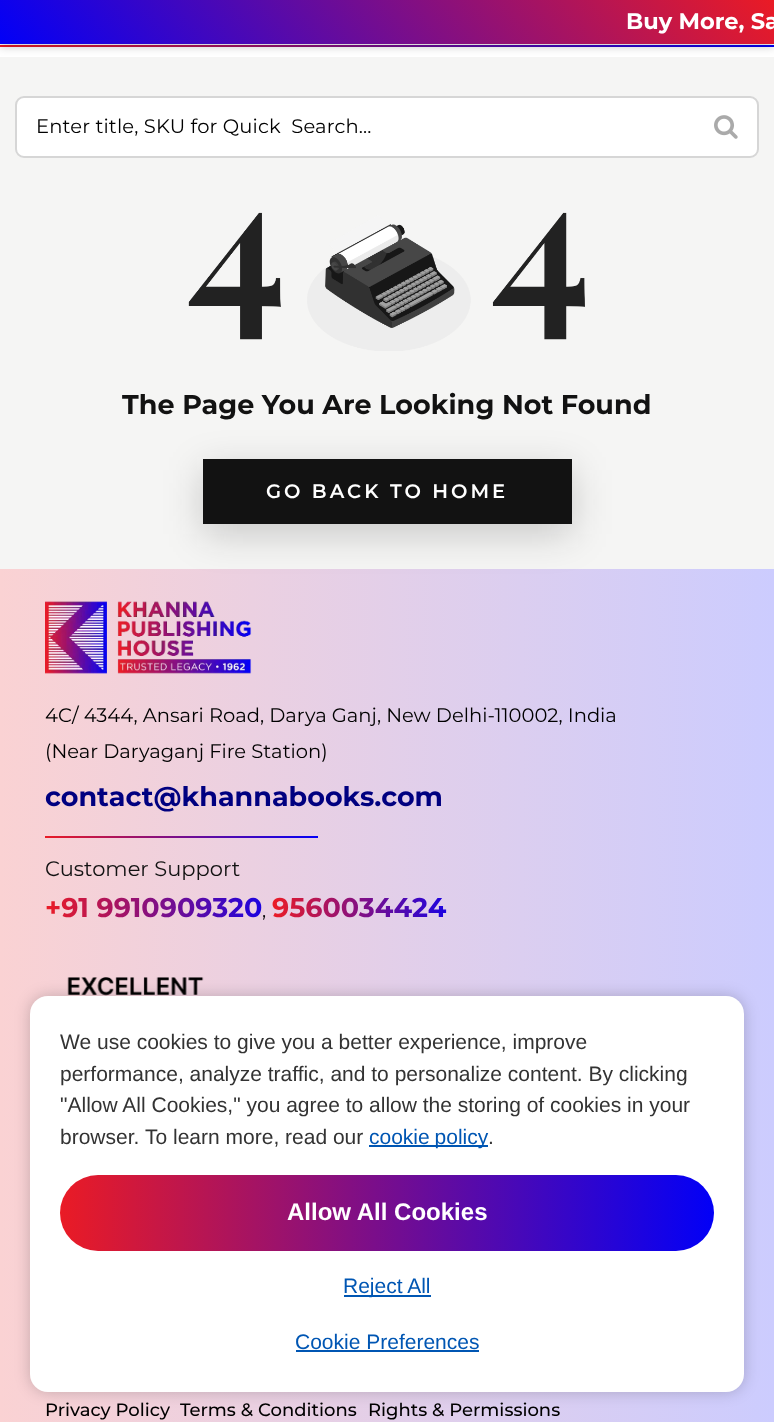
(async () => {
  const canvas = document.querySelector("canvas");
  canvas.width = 774;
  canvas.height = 1422;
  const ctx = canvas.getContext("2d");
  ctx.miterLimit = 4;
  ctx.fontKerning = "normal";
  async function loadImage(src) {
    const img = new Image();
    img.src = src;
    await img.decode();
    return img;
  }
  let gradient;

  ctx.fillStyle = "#f5f5f4";
  ctx.fillRect(0, 0, 774, 1422);
  ctx.fillStyle = "#ffffff";
  ctx.fillRect(0, 44, 774, 13);
  gradient = ctx.createLinearGradient(0, 46, 774, 46);
  gradient.addColorStop(0, "#ea1b25");
  gradient.addColorStop(1, "#0200f7");
  ctx.fillStyle = gradient;
  ctx.fillRect(0, 45, 774, 2);
  ctx.fillStyle = "rgba(0, 0, 0, 0.2)";
  ctx.filter = "blur(4px)";
  ctx.beginPath();
  ctx.rect(0, 3, 774, 44);
  ctx.fill();
  ctx.filter = "none";
  gradient = ctx.createLinearGradient(149, 221, 625, -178);
  gradient.addColorStop(0, "#0200f7");
  gradient.addColorStop(1, "#ea1b25");
  ctx.fillStyle = gradient;
  ctx.fillRect(0, 0, 774, 44);
  ctx.fillStyle = "#ffffff";
  ctx.beginPath();
  ctx.roundRect(16, 97, 742, 60, 8);
  ctx.fill();
  ctx.strokeStyle = "#d6d6d6";
  ctx.lineWidth = 2;
  ctx.stroke();
  ctx.drawImage(await loadImage("img/1.png"), 714, 115, 24, 24);
  ctx.drawImage(await loadImage("img/2.png"), 188, 212, 397, 139);
  gradient = ctx.createLinearGradient(0, 1211, 774, 1211);
  gradient.addColorStop(0, "#fad2d3");
  gradient.addColorStop(1, "#ccccfe");
  ctx.fillStyle = gradient;
  ctx.fillRect(0, 569, 774, 853);
  ctx.fillStyle = "rgba(18, 18, 18, 0.2)";
  ctx.filter = "blur(19px)";
  ctx.beginPath();
  ctx.rect(203, 470, 369, 64);
  ctx.fill();
  ctx.filter = "none";
  ctx.fillStyle = "#121212";
  ctx.fillRect(203, 459, 369, 65);
  ctx.drawImage(await loadImage("img/3.png"), 45, 601, 207, 73);
  gradient = ctx.createLinearGradient(101, 904, 262, 769);
  gradient.addColorStop(0, "#ea1b25");
  gradient.addColorStop(1, "#0200f7");
  ctx.fillStyle = gradient;
  ctx.fillRect(45, 836, 273, 2);
  ctx.drawImage(await loadImage("img/4.png"), 67, 977, 137, 19);
  ctx.fillStyle = "rgba(0, 0, 0, 0.2)";
  ctx.filter = "blur(7.5px)";
  ctx.beginPath();
  ctx.roundRect(30, 996, 714, 396, 18);
  ctx.fill();
  ctx.filter = "none";
  ctx.fillStyle = "#ffffff";
  ctx.beginPath();
  ctx.roundRect(30, 996, 714, 396, 18);
  ctx.fill();
  ctx.fillStyle = "#0056b3";
  ctx.fillRect(369, 1145, 119, 2);
  gradient = ctx.createLinearGradient(60, 1213, 714, 1213);
  gradient.addColorStop(0, "#ea1b25");
  gradient.addColorStop(1, "#0200f7");
  ctx.fillStyle = gradient;
  ctx.beginPath();
  ctx.roundRect(60, 1175, 654, 76, 38);
  ctx.fill();
  ctx.fillStyle = "#0056b3";
  ctx.fillRect(344, 1295, 87, 2);
  ctx.fillRect(296, 1350, 183, 2);
  ctx.font = "bold 22.5px Montserrat";
  ctx.fillStyle = "#ffffff";
  ctx.fillText("Buy More, Sa", 626, 29);
  ctx.letterSpacing = "0.15px";
  ctx.font = "19.5px Montserrat";
  ctx.fillStyle = "#000000";
  ctx.fillText("Enter title, SKU for Quick  Search…", 36, 133);
  ctx.letterSpacing = "0px";
  ctx.font = "bold 27px Montserrat";
  ctx.fillStyle = "#121212";
  ctx.fillText("The Page You Are Looking Not Found", 122, 414);
  ctx.letterSpacing = "3px";
  ctx.font = "600 19.5px Montserrat";
  ctx.fillStyle = "#ffffff";
  ctx.fillText("GO BACK TO HOME", 266, 498);
  ctx.letterSpacing = "0px";
  ctx.font = "19.5px Montserrat";
  ctx.fillStyle = "#000000";
  ctx.fillText("4C/ 4344, Ansari Road, Darya Ganj, New Delhi-110002, India", 45, 722);
  ctx.fillText("(Near Daryaganj Fire Station)", 45, 758);
  ctx.font = "bold 27px Montserrat";
  ctx.fillStyle = "#000080";
  ctx.fillText("contact@khannabooks.com", 45, 806);
  ctx.font = "21px Montserrat";
  ctx.fillStyle = "#121212";
  ctx.fillText("Customer Support", 45, 876);
  ctx.font = "bold 27px Montserrat";
  gradient = ctx.createLinearGradient(45, 908, 262, 908);
  gradient.addColorStop(0, "#ec1c25");
  gradient.addColorStop(1, "#1c03e0");
  ctx.fillStyle = gradient;
  ctx.fillText("+91 9910909320", 45, 917);
  ctx.font = "19.5px Montserrat";
  ctx.fillStyle = "#000000";
  ctx.fillText(",", 262, 917);
  ctx.font = "bold 27px Montserrat";
  gradient = ctx.createLinearGradient(272, 908, 446, 908);
  gradient.addColorStop(0, "#ec1c25");
  gradient.addColorStop(1, "#1c03e0");
  ctx.fillStyle = gradient;
  ctx.fillText("9560034424", 272, 917);
  ctx.font = "500 18px Montserrat";
  ctx.fillStyle = "#000000";
  for (const [text, x, y] of [
    ["Privacy Policy", 45, 1416],
    ["Terms & Conditions", 180, 1416],
    ["Rights & Permissions", 368, 1416],
  ]) {
    ctx.fillText(text, x, y);
  }
  ctx.font = "21px Liberation Sans";
  ctx.fillStyle = "#333333";
  for (const [text, x, y] of [
    ["We use cookies to give you a better experience, improve", 60, 1049],
    ["performance, analyze traffic, and to personalize content. By clicking", 60, 1081],
    ["\"Allow All Cookies,\" you agree to allow the storing of cookies in your", 60, 1112],
    ["browser.", 60, 1144],
    ["To learn more, read our", 145, 1144],
  ]) {
    ctx.fillText(text, x, y);
  }
  ctx.wordSpacing = "-1px";
  ctx.fillStyle = "#0056b3";
  ctx.fillText("cookie policy", 369, 1144);
  ctx.wordSpacing = "0px";
  ctx.fillStyle = "#333333";
  ctx.fillText(".", 488, 1144);
  ctx.font = "bold 24px Liberation Sans";
  ctx.fillStyle = "#ffffff";
  ctx.fillText("Allow All Cookies", 287, 1220);
  ctx.font = "21px Liberation Sans";
  ctx.fillStyle = "#0056b3";
  ctx.fillText("Reject All", 343, 1293);
  ctx.fillText("Cookie Preferences", 295, 1349);
})();
